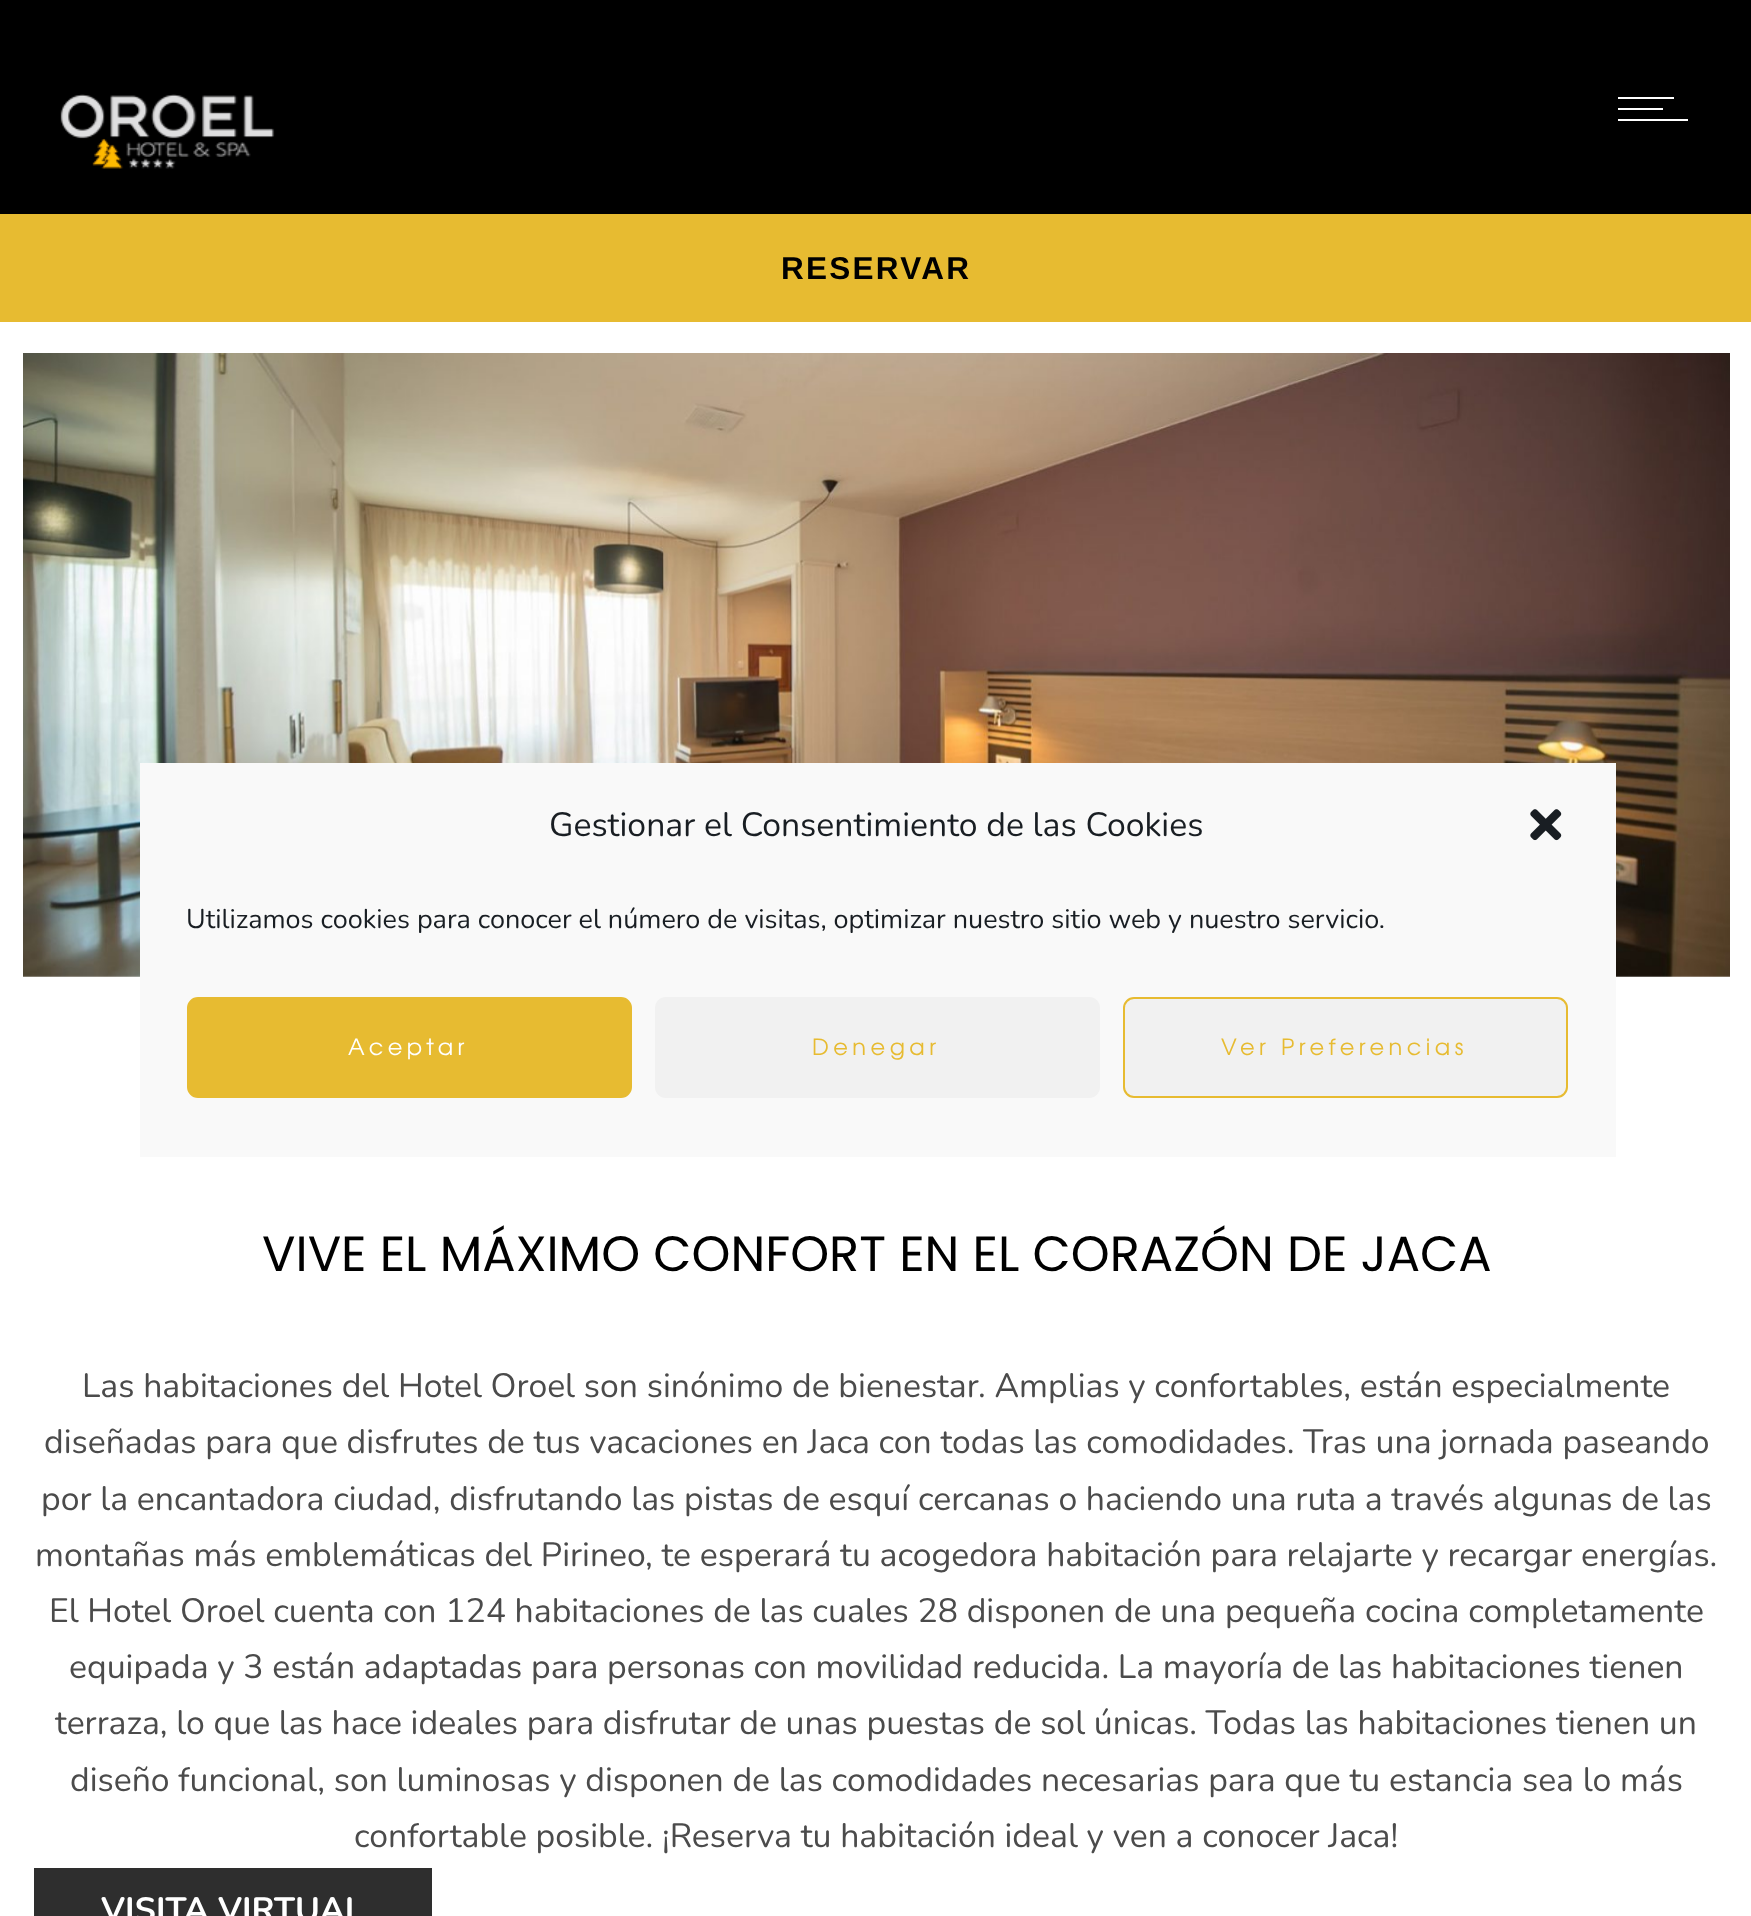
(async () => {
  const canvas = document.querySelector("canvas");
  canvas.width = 1751;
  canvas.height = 1916;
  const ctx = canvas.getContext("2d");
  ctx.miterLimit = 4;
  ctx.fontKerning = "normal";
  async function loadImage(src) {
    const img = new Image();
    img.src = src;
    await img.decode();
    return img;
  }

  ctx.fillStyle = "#ffffff";
  ctx.fillRect(0, 0, 1751, 1916);
  ctx.fillStyle = "#000000";
  ctx.fillRect(0, 0, 1751, 214);
  ctx.drawImage(await loadImage("img/1.png"), 60, 94, 215, 75);
  for (const [x, y, w, h, color] of [
    [1618, 97, 56, 2, "#ffffff"],
    [1618, 108, 45, 2, "#ffffff"],
    [1618, 119, 70, 2, "#ffffff"],
    [0, 214, 1751, 108, "#e7bb31"],
  ]) {
    ctx.fillStyle = color;
    ctx.fillRect(x, y, w, h);
  }
  ctx.drawImage(await loadImage("img/3.png"), 23, 353, 1707, 624);
  ctx.fillStyle = "#f9f9f9";
  ctx.fillRect(140, 763, 1476, 394);
  ctx.drawImage(await loadImage("img/2.png"), 1530, 809, 32, 32);
  ctx.fillStyle = "#e7bb31";
  ctx.beginPath();
  ctx.roundRect(188, 998, 443, 99, 10);
  ctx.fill();
  ctx.strokeStyle = "#e7bb31";
  ctx.lineWidth = 2;
  ctx.stroke();
  ctx.fillStyle = "#f1f1f1";
  ctx.beginPath();
  ctx.roundRect(655, 997, 445, 101, 11);
  ctx.fill();
  ctx.beginPath();
  ctx.roundRect(1124, 998, 443, 99, 10);
  ctx.fill();
  ctx.stroke();
  ctx.fillStyle = "#2e2e2e";
  ctx.fillRect(34, 1868, 398, 48);
  ctx.letterSpacing = "2.25px";
  ctx.font = "bold 31.5px Liberation Sans";
  ctx.fillStyle = "#000000";
  ctx.fillText("RESERVAR", 781, 279);
  ctx.letterSpacing = "0px";
  ctx.font = "33.75px Nunito";
  ctx.fillStyle = "#191e23";
  ctx.fillText("Gestionar el Consentimiento de las Cookies", 549, 836);
  ctx.font = "27px Nunito";
  ctx.fillText("Utilizamos cookies para conocer el número de visitas, optimizar nuestro sitio web y nuestro servicio.", 186, 928);
  ctx.letterSpacing = "4.5px";
  ctx.font = "22.5px TeX Gyre Adventor";
  ctx.fillStyle = "#ffffff";
  ctx.fillText("Aceptar", 348, 1055);
  ctx.fillStyle = "#e7bb31";
  ctx.fillText("Denegar", 812, 1055);
  ctx.fillText("Ver Preferencias", 1221, 1055);
  ctx.letterSpacing = "0px";
  ctx.font = "49.5px Poppins";
  ctx.fillStyle = "#000000";
  ctx.fillText("VIVE EL MÁXIMO CONFORT EN EL CORAZÓN DE JACA", 262, 1271);
  ctx.font = "33.75px Nunito";
  ctx.fillStyle = "#4b4b4b";
  for (const [text, x, y] of [
    ["Las habitaciones del Hotel Oroel son sinónimo de bienestar. Amplias y confortables, están especialmente", 82, 1397],
    ["diseñadas para que disfrutes de tus vacaciones en Jaca con todas las comodidades. Tras una jornada paseando", 44, 1453],
    ["por la encantadora ciudad, disfrutando las pistas de esquí cercanas o haciendo una ruta a través algunas de las", 41, 1510],
    ["montañas más emblemáticas del Pirineo, te esperará tu acogedora habitación para relajarte y recargar energías.", 35, 1566],
    ["El Hotel Oroel cuenta con 124 habitaciones de las cuales 28 disponen de una pequeña cocina completamente", 49, 1622],
    ["equipada y 3 están adaptadas para personas con movilidad reducida. La mayoría de las habitaciones tienen", 69, 1678],
    ["terraza, lo que las hace ideales para disfrutar de unas puestas de sol únicas. Todas las habitaciones tienen un", 55, 1734],
    ["diseño funcional, son luminosas y disponen de las comodidades necesarias para que tu estancia sea lo más", 70, 1791],
    ["confortable posible. ¡Reserva tu habitación ideal y ven a conocer Jaca!", 354, 1847],
  ]) {
    ctx.fillText(text, x, y);
  }
  ctx.font = "bold 33.75px Nunito";
  ctx.fillStyle = "#ffffff";
  ctx.fillText("VISITA VIRTUAL", 101, 1921);
})();
